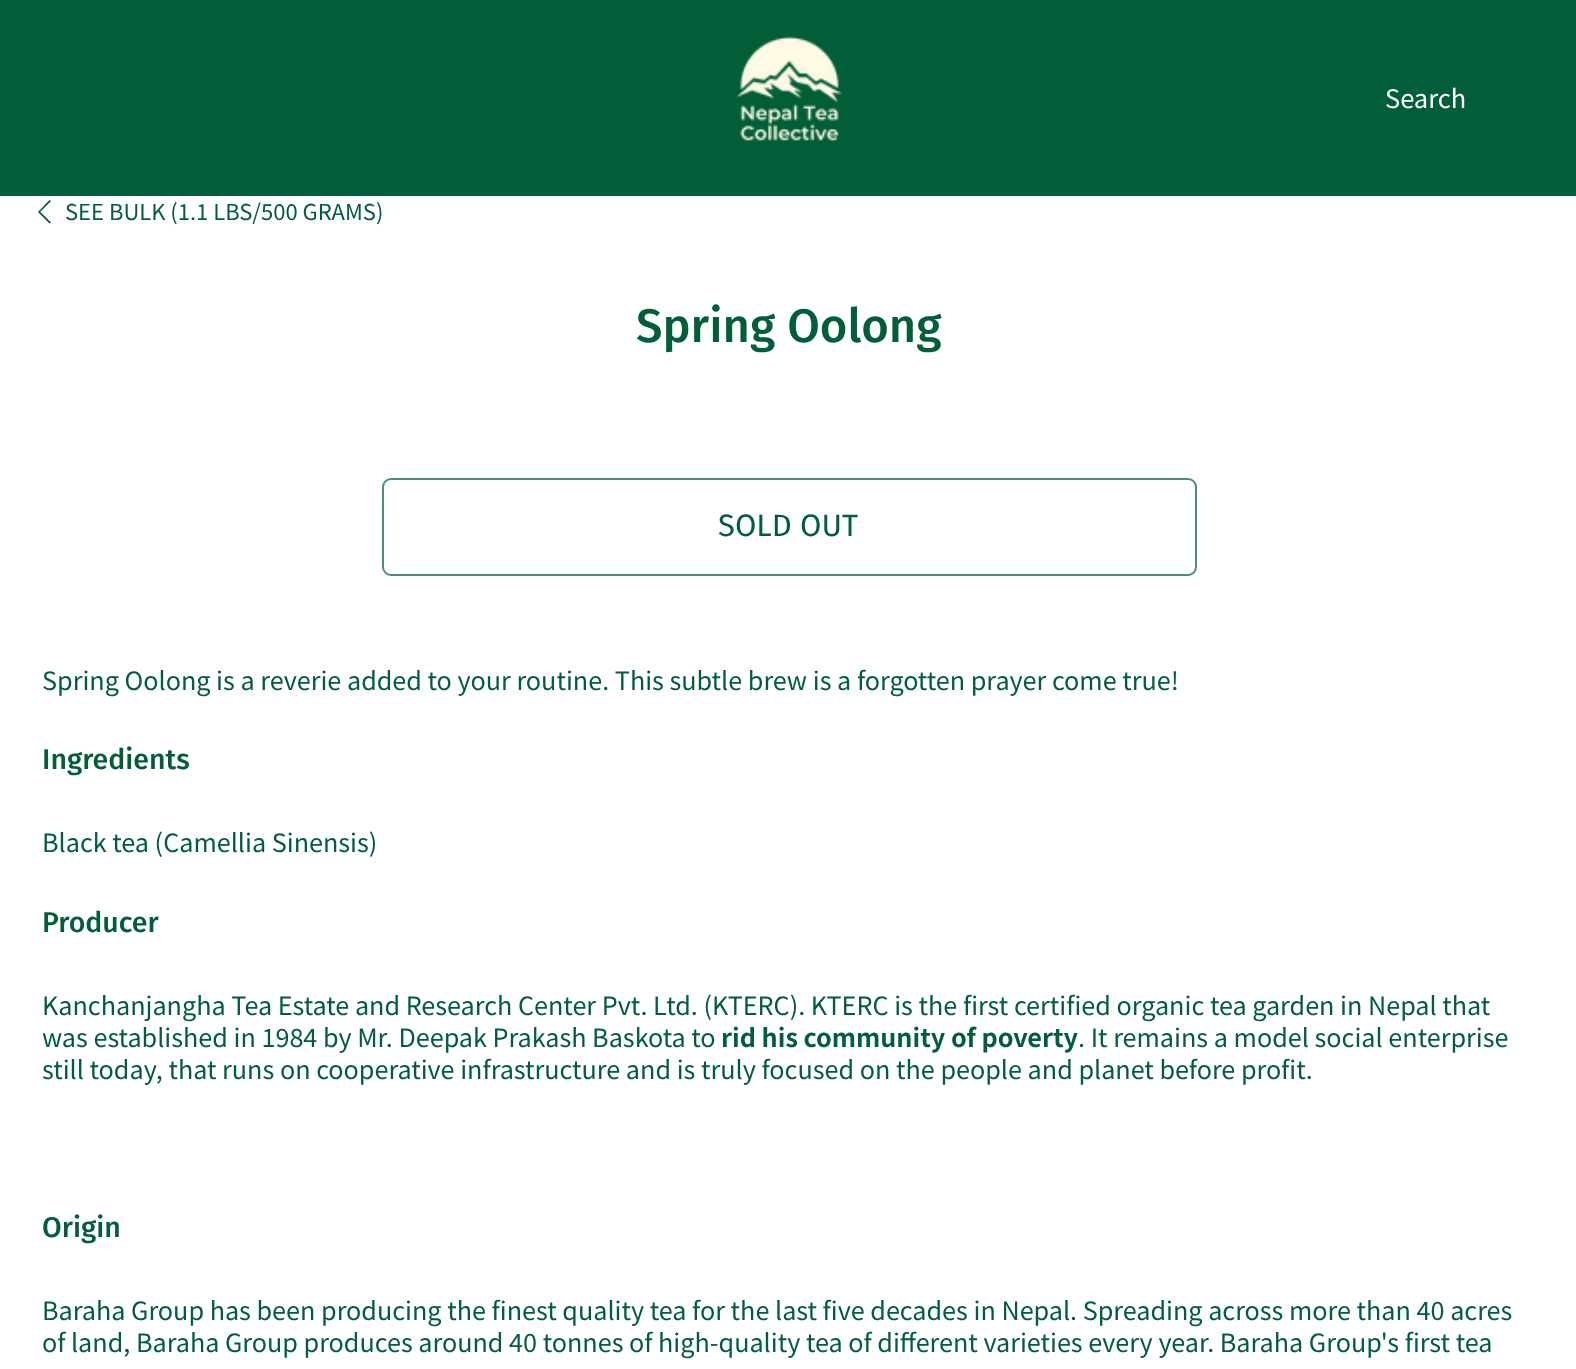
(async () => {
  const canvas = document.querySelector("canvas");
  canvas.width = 1576;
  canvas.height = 1369;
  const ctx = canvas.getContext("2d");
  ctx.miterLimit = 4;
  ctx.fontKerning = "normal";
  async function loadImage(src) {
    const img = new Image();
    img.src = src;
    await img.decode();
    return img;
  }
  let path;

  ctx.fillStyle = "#ffffff";
  ctx.fillRect(0, 0, 1576, 1369);
  ctx.fillStyle = "#015e38";
  ctx.fillRect(0, 0, 1576, 196);
  ctx.drawImage(await loadImage("img/1.png"), 736, 36, 106, 106);
  path = new Path2D("M39 213L51 201L49.5 200L38 212ZM38 212L49.5 223.5L51 222.5L39 210.5Z");
  ctx.fill(path);
  ctx.beginPath();
  ctx.roundRect(383, 479, 813, 96, 8);
  ctx.strokeStyle = "#4d8e74";
  ctx.lineWidth = 2;
  ctx.stroke();
  ctx.font = "25.5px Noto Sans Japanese";
  ctx.fillStyle = "#ffffff";
  ctx.fillText("Search", 1385, 108);
  ctx.font = "22px Noto Sans Japanese";
  ctx.fillStyle = "#005e38";
  ctx.fillText("SEE BULK (1.1 LBS/500 GRAMS)", 65, 220);
  ctx.font = "500 47.25px Fira Sans";
  ctx.fillText("Spring Oolong", 636, 342);
  ctx.font = "31px Fira Sans";
  ctx.fillText("SOLD OUT", 718, 536);
  ctx.font = "25.2px Noto Sans Japanese";
  ctx.fillText("Spring Oolong is a reverie added to your routine. This subtle brew is a forgotten prayer come true!", 42, 690);
  ctx.font = "500 28.5px Fira Sans";
  ctx.fillText("Ingredients", 42, 769);
  ctx.font = "25.2px Noto Sans Japanese";
  ctx.fillText("Black tea (Camellia Sinensis)", 42, 852);
  ctx.font = "500 28.5px Fira Sans";
  ctx.fillText("Producer", 42, 932);
  ctx.font = "25.2px Noto Sans Japanese";
  ctx.fillText("Kanchanjangha Tea Estate and Research Center Pvt. Ltd. (KTERC). KTERC is the first certified organic tea garden in Nepal that", 42, 1015);
  ctx.fillText("was established in 1984 by Mr. Deepak Prakash Baskota to", 42, 1047);
  ctx.font = "bold 25.2px Noto Sans Japanese";
  ctx.fillText("rid his community of poverty", 721, 1047);
  ctx.font = "25.2px Noto Sans Japanese";
  ctx.fillText(". It remains a model social enterprise", 1078, 1047);
  ctx.fillText("still today, that runs on cooperative infrastructure and is truly focused on the people and planet before profit.", 42, 1079);
  ctx.font = "500 28.5px Fira Sans";
  ctx.fillText("Origin", 42, 1237);
  ctx.font = "25.2px Noto Sans Japanese";
  ctx.fillText("Baraha Group has been producing the finest quality tea for the last five decades in Nepal. Spreading across more than 40 acres", 42, 1320);
  ctx.fillText("of land, Baraha Group produces around 40 tonnes of high-quality tea of different varieties every year. Baraha Group's first tea", 42, 1352);
})();
